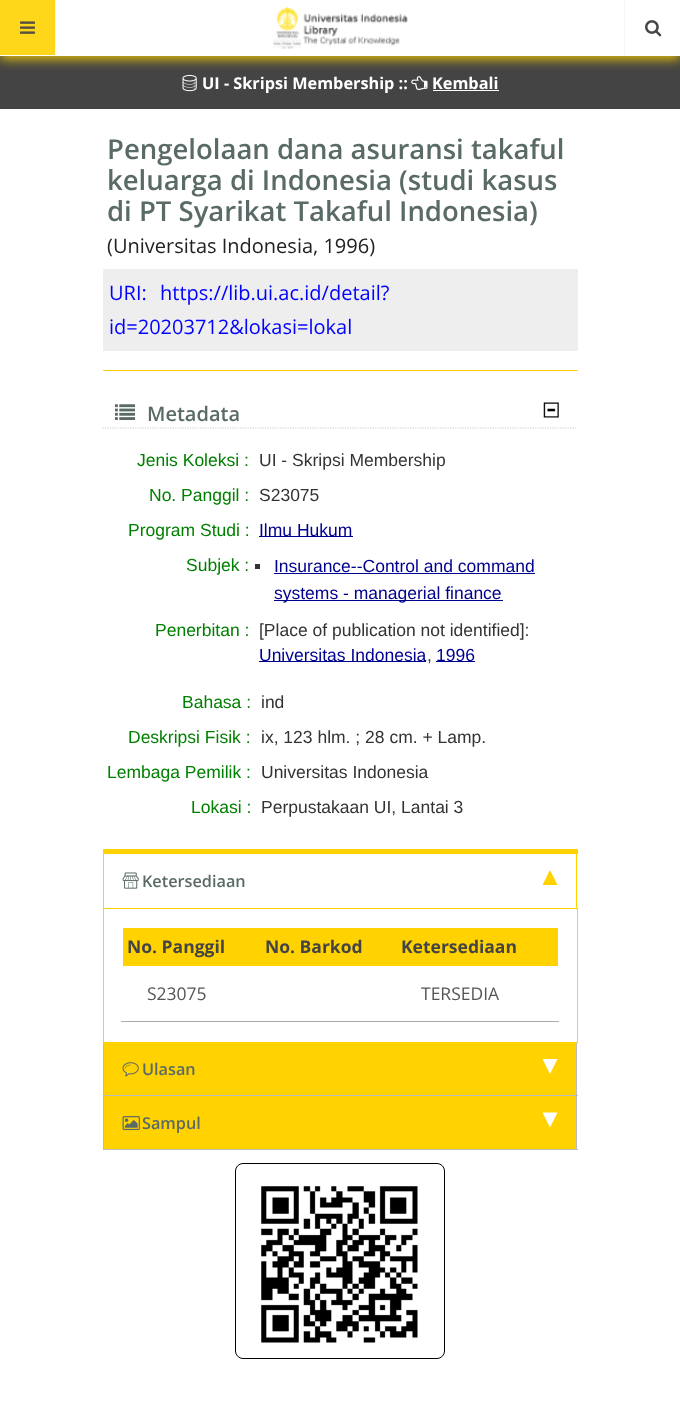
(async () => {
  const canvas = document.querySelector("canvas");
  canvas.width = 680;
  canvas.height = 1409;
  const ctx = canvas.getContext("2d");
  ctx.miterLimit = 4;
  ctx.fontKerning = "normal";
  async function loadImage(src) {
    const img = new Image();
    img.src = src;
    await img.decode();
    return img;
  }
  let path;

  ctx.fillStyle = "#ffffff";
  ctx.fillRect(0, 0, 680, 1409);
  ctx.fillStyle = "#444444";
  ctx.fillRect(0, 56, 680, 53);
  ctx.drawImage(await loadImage("img/4.png"), 182, 74, 15, 18);
  ctx.drawImage(await loadImage("img/5.png"), 411, 76, 17, 14);
  ctx.save();
  ctx.beginPath();
  ctx.rect(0, 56, 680, 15);
  ctx.clip();
  ctx.fillStyle = "#ecc407";
  ctx.filter = "blur(6px)";
  ctx.beginPath();
  ctx.rect(0, 3, 680, 56);
  ctx.fill();
  ctx.filter = "none";
  ctx.restore();
  ctx.fillStyle = "#ffd71a";
  ctx.fillRect(0, 0, 55, 55);
  ctx.fillStyle = "#f5f5f5";
  ctx.fillRect(55, 0, 1, 55);
  ctx.drawImage(await loadImage("img/1.png"), 20, 21, 15, 13);
  ctx.drawImage(await loadImage("img/2.png"), 273, 7, 135, 42);
  ctx.fillRect(624, 0, 1, 55);
  ctx.drawImage(await loadImage("img/3.png"), 645, 20, 17, 17);
  ctx.fillStyle = "#ffffff";
  ctx.fillRect(433, 90, 66, 1);
  ctx.fillStyle = "#eeeeee";
  ctx.fillRect(103, 269, 475, 82);
  ctx.fillStyle = "#ffd200";
  ctx.beginPath();
  ctx.roundRect(103, 370, 475, 1, 0.5);
  ctx.fill();
  path = new Path2D("M102.5 428H577.5");
  ctx.strokeStyle = "#cccccc";
  ctx.lineWidth = 1.2;
  ctx.setLineDash([1.25, 1.25]);
  ctx.stroke(path);
  ctx.drawImage(await loadImage("img/6.png"), 115, 404, 20, 16);
  ctx.drawImage(await loadImage("img/7.png"), 543, 402, 16, 16);
  for (const [x, y, w, h, color] of [
    [259, 536, 94, 1, "#000090"],
    [255, 564, 5, 5, "#333333"],
    [274, 573, 261, 1, "#000090"],
    [274, 600, 229, 1, "#000090"],
    [259, 661, 167, 1, "#000090"],
    [436, 661, 39, 1, "#000090"],
    [103, 849, 475, 5, "#ffd200"],
    [576, 849, 1, 59, "#ffd200"],
    [103, 849, 1, 59, "#ffd200"],
  ]) {
    ctx.fillStyle = color;
    ctx.fillRect(x, y, w, h);
  }
  ctx.drawImage(await loadImage("img/8.png"), 122, 872, 17, 17);
  path = new Path2D("M557.5 885H542.5L550 870Z");
  ctx.fill(path);
  ctx.strokeStyle = "#ffd200";
  ctx.lineWidth = 1;
  ctx.setLineDash([]);
  ctx.strokeRect(103.5, 908.5, 474, 134);
  for (const [x, y, w, h, color] of [
    [123, 928, 435, 38, "#ffd200"],
    [121, 1021, 438, 1, "#aaaaaa"],
    [104, 1043, 472, 52, "#ffd200"],
    [576, 1043, 1, 107, "#bbbbbb"],
    [103, 1095, 475, 1, "#bbbbbb"],
    [103, 1043, 1, 53, "#bbbbbb"],
  ]) {
    ctx.fillStyle = color;
    ctx.fillRect(x, y, w, h);
  }
  ctx.drawImage(await loadImage("img/9.png"), 122, 1062, 17, 15);
  ctx.fillStyle = "#ffffff";
  path = new Path2D("M542.5 1059H557.5L550 1074Z");
  ctx.fill(path);
  for (const [x, y, w, h, color] of [
    [104, 1096, 472, 53, "#ffd200"],
    [103, 1149, 475, 1, "#bbbbbb"],
    [103, 1096, 1, 54, "#bbbbbb"],
  ]) {
    ctx.fillStyle = color;
    ctx.fillRect(x, y, w, h);
  }
  ctx.drawImage(await loadImage("img/10.png"), 122, 1116, 18, 15);
  ctx.fillStyle = "#ffffff";
  path = new Path2D("M542.5 1112.5H557.5L550 1127.5Z");
  ctx.fill(path);
  ctx.beginPath();
  ctx.roundRect(235.5, 1163.5, 209, 195, 7.5);
  ctx.strokeStyle = "#000000";
  ctx.stroke();
  ctx.drawImage(await loadImage("img/11.png"), 261, 1186, 157, 157);
  ctx.font = "bold 16.25px Open Sans";
  ctx.fillText("UI - Skripsi Membership ::", 202, 89);
  ctx.fillText("Kembali", 432, 89);
  ctx.font = "600 27.5px Open Sans";
  ctx.fillStyle = "#596a67";
  for (const [text, x, y] of [
    ["Pengelolaan dana asuransi takaful", 107, 159],
    ["keluarga di Indonesia (studi kasus", 107, 190],
    ["di PT Syarikat Takaful Indonesia)", 107, 221],
  ]) {
    ctx.fillText(text, x, y);
  }
  ctx.font = "20px Open Sans";
  ctx.fillStyle = "#222222";
  ctx.fillText("(Universitas Indonesia, 1996)", 107, 253);
  ctx.fillStyle = "#0000ff";
  for (const [text, x, y] of [
    ["URI:", 109, 300],
    ["https://lib.ui.ac.id/detail?", 160, 300],
    ["id=20203712&lokasi=lokal", 109, 334],
  ]) {
    ctx.fillText(text, x, y);
  }
  ctx.font = "600 20px Open Sans";
  ctx.fillStyle = "#596a67";
  ctx.fillText("Metadata", 147, 421);
  ctx.font = "17.5px Liberation Sans";
  ctx.fillStyle = "#008000";
  ctx.fillText("Jenis Koleksi :", 137, 466);
  ctx.fillStyle = "#333333";
  ctx.fillText("UI - Skripsi Membership", 259, 466);
  ctx.fillStyle = "#008000";
  ctx.fillText("No. Panggil :", 149, 501);
  ctx.fillStyle = "#333333";
  ctx.fillText("S23075", 259, 501);
  ctx.fillStyle = "#008000";
  ctx.fillText("Program Studi :", 128, 536);
  ctx.fillStyle = "#000090";
  ctx.fillText("Ilmu Hukum", 259, 536);
  ctx.fillStyle = "#008000";
  ctx.fillText("Subjek :", 186, 571);
  ctx.fillStyle = "#000090";
  ctx.fillText("Insurance--Control and command", 274, 572);
  ctx.fillText("systems - managerial finance", 274, 599);
  ctx.fillStyle = "#008000";
  ctx.fillText("Penerbitan :", 155, 636);
  ctx.fillStyle = "#333333";
  ctx.fillText("[Place of publication not identified]:", 259, 636);
  ctx.fillStyle = "#000090";
  ctx.fillText("Universitas Indonesia", 259, 661);
  ctx.fillStyle = "#333333";
  ctx.fillText(",", 427, 661);
  ctx.fillStyle = "#000090";
  ctx.fillText("1996", 436, 661);
  ctx.fillStyle = "#008000";
  ctx.fillText("Bahasa :", 182, 708);
  ctx.fillStyle = "#333333";
  ctx.fillText("ind", 261, 708);
  ctx.fillStyle = "#008000";
  ctx.fillText("Deskripsi Fisik :", 128, 743);
  ctx.fillStyle = "#333333";
  ctx.fillText("ix, 123 hlm. ; 28 cm. + Lamp.", 261, 743);
  ctx.fillStyle = "#008000";
  ctx.fillText("Lembaga Pemilik :", 107, 778);
  ctx.fillStyle = "#333333";
  ctx.fillText("Universitas Indonesia", 261, 778);
  ctx.fillStyle = "#008000";
  ctx.fillText("Lokasi :", 191, 813);
  ctx.fillStyle = "#333333";
  ctx.fillText("Perpustakaan UI, Lantai 3", 261, 813);
  ctx.font = "600 16.25px Open Sans";
  ctx.fillStyle = "#596a67";
  ctx.fillText("Ketersediaan", 142, 887);
  ctx.font = "bold 17.5px Open Sans";
  ctx.fillStyle = "#444444";
  for (const [text, x, y] of [
    ["No. Panggil", 127, 953],
    ["No. Barkod", 265, 953],
    ["Ketersediaan", 401, 953],
  ]) {
    ctx.fillText(text, x, y);
  }
  ctx.font = "17.5px Open Sans";
  ctx.fillStyle = "#555555";
  ctx.fillText("S23075", 147, 1000);
  ctx.fillText("TERSEDIA", 421, 1000);
  ctx.font = "600 16.25px Open Sans";
  ctx.fillStyle = "#596a67";
  ctx.fillText("Ulasan", 142, 1075);
  ctx.fillText("Sampul", 142, 1129);
})();
